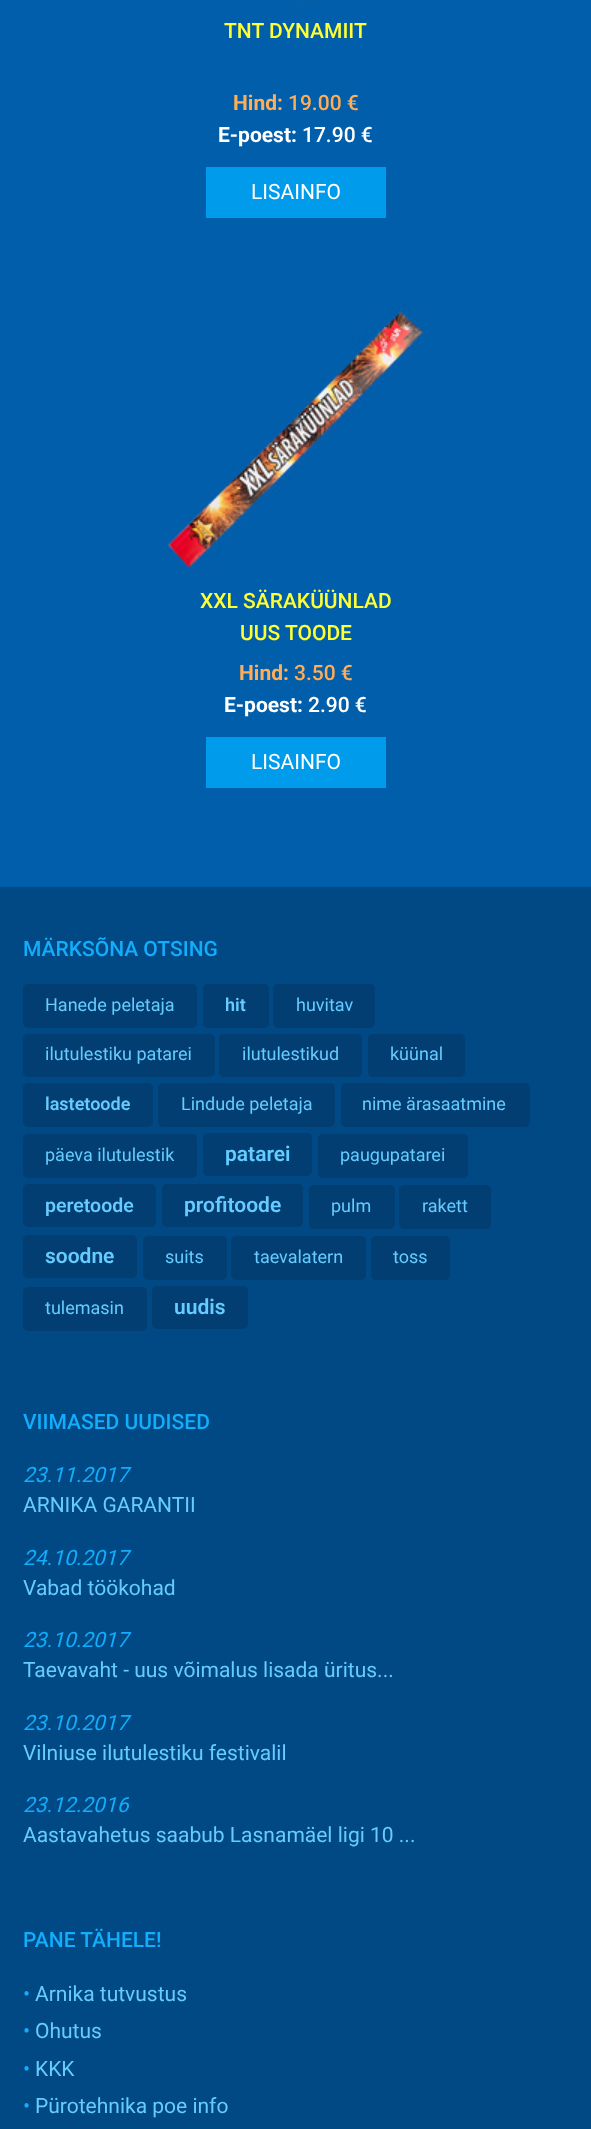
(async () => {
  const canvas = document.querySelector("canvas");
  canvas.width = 591;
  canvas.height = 2129;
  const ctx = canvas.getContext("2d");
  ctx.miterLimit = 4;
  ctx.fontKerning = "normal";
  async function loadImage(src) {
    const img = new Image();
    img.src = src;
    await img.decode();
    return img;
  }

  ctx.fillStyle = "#014985";
  ctx.fillRect(0, 0, 591, 2129);
  ctx.fillStyle = "#015eab";
  ctx.fillRect(0, 0, 591, 887);
  ctx.drawImage(await loadImage("img/1.png"), 293, 0, 20, 2);
  ctx.fillStyle = "#009beb";
  ctx.fillRect(206, 167, 180, 51);
  ctx.drawImage(await loadImage("img/2.png"), 160, 302, 265, 269);
  ctx.fillRect(206, 737, 180, 51);
  ctx.fillStyle = "#023e71";
  ctx.beginPath();
  ctx.roundRect(23, 984, 174, 44, 5);
  ctx.fill();
  ctx.beginPath();
  ctx.roundRect(203, 984, 66, 44, 5);
  ctx.fill();
  ctx.beginPath();
  ctx.roundRect(273, 984, 102, 44, 5);
  ctx.fill();
  ctx.beginPath();
  ctx.roundRect(23, 1034, 192, 43, 5);
  ctx.fill();
  ctx.beginPath();
  ctx.roundRect(219, 1034, 143, 43, 5);
  ctx.fill();
  ctx.beginPath();
  ctx.roundRect(368, 1034, 97, 43, 5);
  ctx.fill();
  ctx.beginPath();
  ctx.roundRect(23, 1083, 130, 44, 5);
  ctx.fill();
  ctx.beginPath();
  ctx.roundRect(158, 1083, 177, 44, 5);
  ctx.fill();
  ctx.beginPath();
  ctx.roundRect(341, 1083, 189, 44, 5);
  ctx.fill();
  ctx.beginPath();
  ctx.roundRect(23, 1134, 174, 44, 5);
  ctx.fill();
  ctx.beginPath();
  ctx.roundRect(203, 1133, 109, 43, 5);
  ctx.fill();
  ctx.beginPath();
  ctx.roundRect(318, 1134, 150, 44, 5);
  ctx.fill();
  ctx.beginPath();
  ctx.roundRect(23, 1184, 133, 43, 5);
  ctx.fill();
  ctx.beginPath();
  ctx.roundRect(162, 1184, 141, 43, 5);
  ctx.fill();
  ctx.beginPath();
  ctx.roundRect(309, 1185, 86, 44, 5);
  ctx.fill();
  ctx.beginPath();
  ctx.roundRect(399, 1185, 92, 44, 5);
  ctx.fill();
  ctx.beginPath();
  ctx.roundRect(23, 1235, 114, 43, 5);
  ctx.fill();
  ctx.beginPath();
  ctx.roundRect(143, 1236, 84, 44, 5);
  ctx.fill();
  ctx.beginPath();
  ctx.roundRect(231, 1236, 135, 44, 5);
  ctx.fill();
  ctx.beginPath();
  ctx.roundRect(371, 1236, 79, 44, 5);
  ctx.fill();
  ctx.beginPath();
  ctx.roundRect(23, 1287, 124, 44, 5);
  ctx.fill();
  ctx.beginPath();
  ctx.roundRect(152, 1286, 96, 43, 5);
  ctx.fill();
  ctx.font = "500 21px Roboto";
  ctx.fillStyle = "#ffff33";
  ctx.fillText("TNT DYNAMIIT", 224, 38);
  ctx.font = "bold 21px Roboto";
  ctx.fillStyle = "#ffad57";
  ctx.fillText("Hind:", 233, 110);
  ctx.font = "500 21px Roboto";
  ctx.fillText("19.00 €", 288, 110);
  ctx.font = "bold 21px Roboto";
  ctx.fillStyle = "#ffffff";
  ctx.fillText("E-poest:", 218, 142);
  ctx.font = "500 21px Roboto";
  ctx.fillText("17.90 €", 302, 142);
  ctx.font = "21px Roboto";
  ctx.fillText("LISAINFO", 251, 199);
  ctx.font = "500 21px Roboto";
  ctx.fillStyle = "#ffff33";
  ctx.fillText("XXL SÄRAKÜÜNLAD", 200, 608);
  ctx.fillText("UUS TOODE", 240, 640);
  ctx.font = "bold 21px Roboto";
  ctx.fillStyle = "#ffad57";
  ctx.fillText("Hind:", 239, 680);
  ctx.font = "500 21px Roboto";
  ctx.fillText("3.50 €", 294, 680);
  ctx.font = "bold 21px Roboto";
  ctx.fillStyle = "#ffffff";
  ctx.fillText("E-poest:", 224, 712);
  ctx.font = "500 21px Roboto";
  ctx.fillText("2.90 €", 308, 712);
  ctx.font = "21px Roboto";
  ctx.fillText("LISAINFO", 251, 769);
  ctx.font = "500 21px Roboto";
  ctx.fillStyle = "#12adfb";
  ctx.fillText("MÄRKSÕNA OTSING", 23, 956);
  ctx.font = "18px Roboto";
  ctx.fillStyle = "#66ccff";
  ctx.fillText("Hanede peletaja", 45, 1011);
  ctx.font = "600 18px Roboto";
  ctx.fillText("hit", 225, 1011);
  ctx.font = "18px Roboto";
  for (const [text, x, y] of [
    ["huvitav", 296, 1011],
    ["ilutulestiku patarei", 45, 1060],
    ["ilutulestikud", 242, 1060],
    ["küünal", 390, 1060],
  ]) {
    ctx.fillText(text, x, y);
  }
  ctx.font = "600 18px Roboto";
  ctx.fillText("lastetoode", 45, 1110);
  ctx.font = "18px Roboto";
  for (const [text, x, y] of [
    ["Lindude peletaja", 181, 1110],
    ["nime ärasaatmine", 362, 1110],
    ["päeva ilutulestik", 45, 1161],
  ]) {
    ctx.fillText(text, x, y);
  }
  ctx.font = "600 21px Roboto";
  ctx.fillText("patarei", 225, 1161);
  ctx.font = "18px Roboto";
  ctx.fillText("paugupatarei", 340, 1161);
  ctx.font = "600 19.5px Roboto";
  ctx.fillText("peretoode", 45, 1212);
  ctx.font = "600 21px Roboto";
  ctx.fillText("profitoode", 184, 1212);
  ctx.font = "18px Roboto";
  ctx.fillText("pulm", 331, 1212);
  ctx.fillText("rakett", 422, 1212);
  ctx.font = "600 21px Roboto";
  ctx.fillText("soodne", 45, 1263);
  ctx.font = "18px Roboto";
  for (const [text, x, y] of [
    ["suits", 165, 1263],
    ["taevalatern", 254, 1263],
    ["toss", 393, 1263],
    ["tulemasin", 45, 1314],
  ]) {
    ctx.fillText(text, x, y);
  }
  ctx.font = "600 21px Roboto";
  ctx.fillText("uudis", 174, 1314);
  ctx.font = "500 21px Roboto";
  ctx.fillStyle = "#12adfb";
  ctx.fillText("VIIMASED UUDISED", 23, 1429);
  ctx.font = "italic 21px Roboto";
  ctx.fillText("23.11.2017", 23, 1482);
  ctx.font = "21px Roboto";
  ctx.fillStyle = "#66ccff";
  ctx.fillText("ARNIKA GARANTII", 23, 1512);
  ctx.font = "italic 21px Roboto";
  ctx.fillStyle = "#12adfb";
  ctx.fillText("24.10.2017", 23, 1565);
  ctx.font = "21px Roboto";
  ctx.fillStyle = "#66ccff";
  ctx.fillText("Vabad töökohad", 23, 1595);
  ctx.font = "italic 21px Roboto";
  ctx.fillStyle = "#12adfb";
  ctx.fillText("23.10.2017", 23, 1647);
  ctx.font = "21px Roboto";
  ctx.fillStyle = "#66ccff";
  ctx.fillText("Taevavaht - uus võimalus lisada üritus...", 23, 1677);
  ctx.font = "italic 21px Roboto";
  ctx.fillStyle = "#12adfb";
  ctx.fillText("23.10.2017", 23, 1730);
  ctx.font = "21px Roboto";
  ctx.fillStyle = "#66ccff";
  ctx.fillText("Vilniuse ilutulestiku festivalil", 23, 1760);
  ctx.font = "italic 21px Roboto";
  ctx.fillStyle = "#12adfb";
  ctx.fillText("23.12.2016", 23, 1812);
  ctx.font = "21px Roboto";
  ctx.fillStyle = "#66ccff";
  ctx.fillText("Aastavahetus saabub Lasnamäel ligi 10 ...", 23, 1842);
  ctx.font = "500 21px Roboto";
  ctx.fillStyle = "#12adfb";
  ctx.fillText("PANE TÄHELE!", 23, 1947);
  ctx.font = "21px Roboto";
  ctx.fillText("•", 23, 2001);
  ctx.fillStyle = "#66ccff";
  ctx.fillText("Arnika tutvustus", 35, 2001);
  ctx.fillStyle = "#12adfb";
  ctx.fillText("•", 23, 2038);
  ctx.fillStyle = "#66ccff";
  ctx.fillText("Ohutus", 35, 2038);
  ctx.fillStyle = "#12adfb";
  ctx.fillText("•", 23, 2076);
  ctx.fillStyle = "#66ccff";
  ctx.fillText("KKK", 35, 2076);
  ctx.fillStyle = "#12adfb";
  ctx.fillText("•", 23, 2113);
  ctx.fillStyle = "#66ccff";
  ctx.fillText("Pürotehnika poe info", 35, 2113);
})();
